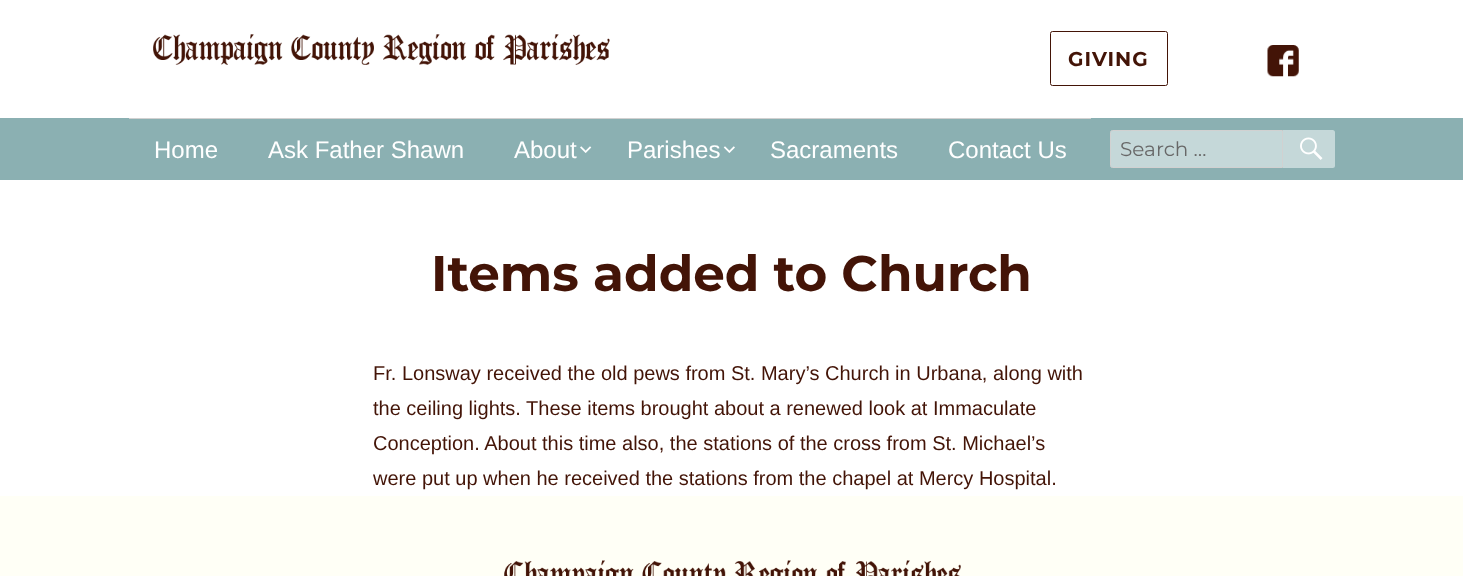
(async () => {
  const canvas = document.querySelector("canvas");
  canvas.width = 1463;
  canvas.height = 576;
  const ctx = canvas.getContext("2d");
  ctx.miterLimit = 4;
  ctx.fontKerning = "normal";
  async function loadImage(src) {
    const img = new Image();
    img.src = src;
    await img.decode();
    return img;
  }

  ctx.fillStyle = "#ffffff";
  ctx.fillRect(0, 0, 1463, 576);
  ctx.drawImage(await loadImage("img/1.png"), 153, 34, 457, 31);
  ctx.beginPath();
  ctx.roundRect(1050.5, 31.5, 117, 54, 2);
  ctx.strokeStyle = "#431407";
  ctx.stroke();
  ctx.drawImage(await loadImage("img/2.png"), 1267, 45, 32, 32);
  ctx.fillStyle = "#8bb0b2";
  ctx.fillRect(0, 118, 1463, 62);
  ctx.fillStyle = "#d1d1d1";
  ctx.fillRect(129, 118, 962, 1);
  ctx.drawImage(await loadImage("img/3.png"), 580, 146, 12, 7);
  ctx.drawImage(await loadImage("img/4.png"), 723, 146, 12, 7);
  ctx.fillStyle = "#c5d8d9";
  ctx.beginPath();
  ctx.roundRect(1110.5, 130.5, 172, 37, [2, 0, 0, 2]);
  ctx.fill();
  ctx.strokeStyle = "#d1d1d1";
  ctx.stroke();
  ctx.beginPath();
  ctx.roundRect(1283, 130, 52, 38, [0, 2.5, 2.5, 0]);
  ctx.fill();
  ctx.drawImage(await loadImage("img/5.png"), 1300, 137, 23, 23);
  ctx.fillStyle = "#fffff6";
  ctx.fillRect(0, 496, 1463, 80);
  ctx.drawImage(await loadImage("img/6.png"), 504, 560, 457, 16);
  ctx.letterSpacing = "1px";
  ctx.font = "100 20px Montserrat";
  ctx.fillStyle = "#431407";
  ctx.fillText("GIVING", 1068, 66);
  ctx.letterSpacing = "0px";
  ctx.font = "24px Liberation Sans";
  ctx.fillStyle = "#ffffff";
  for (const [text, x, y] of [
    ["Home", 154, 158],
    ["Ask Father Shawn", 268, 158],
    ["About", 514, 158],
    ["Parishes", 627, 158],
    ["Sacraments", 770, 158],
    ["Contact Us", 948, 158],
  ]) {
    ctx.fillText(text, x, y);
  }
  ctx.font = "100 20px 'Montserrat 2'";
  ctx.fillStyle = "#686868";
  ctx.fillText("Search …", 1120, 156);
  ctx.font = "100 50px Montserrat";
  ctx.fillStyle = "#431407";
  ctx.fillText("Items added to Church", 431, 291);
  ctx.font = "20px Liberation Sans";
  for (const [text, x, y] of [
    ["Fr. Lonsway received the old pews from St. Mary’s Church in Urbana, along with", 373, 380],
    ["the ceiling lights. These items brought about a renewed look at Immaculate", 373, 415],
    ["Conception. About this time also, the stations of the cross from St. Michael’s", 373, 450],
    ["were put up when he received the stations from the chapel at Mercy Hospital.", 373, 485],
  ]) {
    ctx.fillText(text, x, y);
  }
})();
